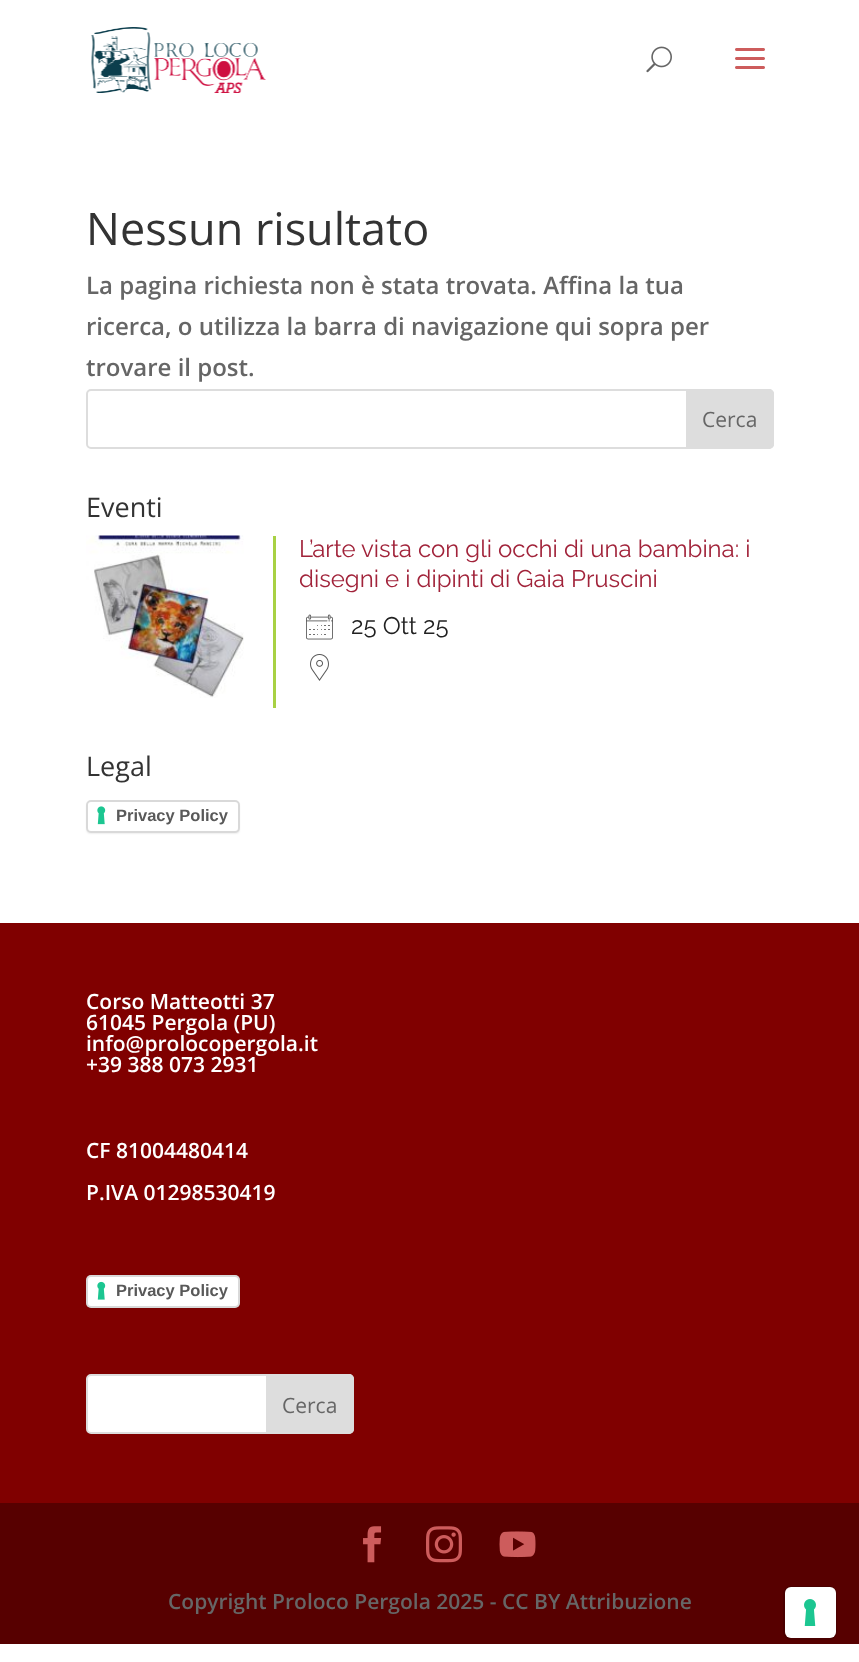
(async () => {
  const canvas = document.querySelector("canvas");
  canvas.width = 859;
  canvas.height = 1662;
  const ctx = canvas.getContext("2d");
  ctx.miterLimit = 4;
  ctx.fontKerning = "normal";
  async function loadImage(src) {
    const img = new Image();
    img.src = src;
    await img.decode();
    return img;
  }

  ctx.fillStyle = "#ffffff";
  ctx.fillRect(0, 0, 859, 1662);
  ctx.drawImage(await loadImage("img/1.png"), 91, 27, 175, 66);
  ctx.drawImage(await loadImage("img/2.png"), 646, 46, 26, 27);
  ctx.drawImage(await loadImage("img/3.png"), 735, 48, 30, 21);
  ctx.beginPath();
  ctx.roundRect(87, 390, 686, 58, 4);
  ctx.strokeStyle = "#dddddd";
  ctx.lineWidth = 2;
  ctx.stroke();
  ctx.fillStyle = "#dddddd";
  ctx.beginPath();
  ctx.roundRect(687, 390, 86, 58, [0, 4, 4, 0]);
  ctx.fill();
  ctx.stroke();
  ctx.drawImage(await loadImage("img/4.png"), 86, 535, 158, 163);
  ctx.fillStyle = "#a8d144";
  ctx.fillRect(273, 536, 3, 172);
  ctx.drawImage(await loadImage("img/5.png"), 306, 614, 27, 26);
  ctx.drawImage(await loadImage("img/6.png"), 310, 654, 19, 27);
  ctx.fillStyle = "rgba(0, 0, 0, 0.15)";
  ctx.filter = "blur(1px)";
  ctx.beginPath();
  ctx.roundRect(87, 803, 152, 30, 3);
  ctx.fill();
  ctx.filter = "none";
  ctx.fillStyle = "#ffffff";
  ctx.beginPath();
  ctx.roundRect(86, 800, 154, 33, 5);
  ctx.fill();
  ctx.drawImage(await loadImage("img/7.png"), 97, 806, 9, 19);
  ctx.beginPath();
  ctx.roundRect(87, 801, 152, 31, 4);
  ctx.strokeStyle = "rgba(0, 0, 0, 0.15)";
  ctx.stroke();
  ctx.fillStyle = "#800000";
  ctx.fillRect(0, 923, 859, 580);
  ctx.fillStyle = "rgba(0, 0, 0, 0.15)";
  ctx.filter = "blur(1px)";
  ctx.beginPath();
  ctx.roundRect(87, 1278, 152, 30, 3);
  ctx.fill();
  ctx.filter = "none";
  ctx.fillStyle = "#ffffff";
  ctx.beginPath();
  ctx.roundRect(86, 1275, 154, 33, 5);
  ctx.fill();
  ctx.drawImage(await loadImage("img/8.png"), 97, 1281, 9, 19);
  ctx.beginPath();
  ctx.roundRect(87, 1276, 152, 31, 4);
  ctx.stroke();
  ctx.beginPath();
  ctx.roundRect(87, 1375, 266, 58, 4);
  ctx.fill();
  ctx.strokeStyle = "#dddddd";
  ctx.stroke();
  ctx.fillStyle = "#dddddd";
  ctx.beginPath();
  ctx.roundRect(267, 1375, 86, 58, [0, 4, 4, 0]);
  ctx.fill();
  ctx.stroke();
  ctx.fillStyle = "#570000";
  ctx.fillRect(0, 1503, 859, 141);
  ctx.drawImage(await loadImage("img/9.png"), 363, 1526, 19, 37);
  ctx.drawImage(await loadImage("img/10.png"), 426, 1526, 36, 37);
  ctx.drawImage(await loadImage("img/11.png"), 499, 1531, 37, 27);
  ctx.beginPath();
  ctx.roundRect(784, 1587, 52, 52, 7);
  ctx.strokeStyle = "#4a0000";
  ctx.stroke();
  ctx.fillStyle = "#ffffff";
  ctx.beginPath();
  ctx.roundRect(785, 1587, 51, 51, 6);
  ctx.fill();
  ctx.drawImage(await loadImage("img/12.png"), 804, 1599, 12, 27);
  ctx.font = "45px Open Sans";
  ctx.fillStyle = "#333333";
  ctx.fillText("Nessun risultato", 86, 245);
  ctx.font = "600 24px Open Sans";
  ctx.fillStyle = "#666666";
  for (const [text, x, y] of [
    ["La pagina richiesta non è stata trovata. Affina la tua", 86, 294],
    ["ricerca, o utilizza la barra di navigazione qui sopra per", 86, 335],
    ["trovare il post.", 86, 376],
  ]) {
    ctx.fillText(text, x, y);
  }
  ctx.font = "21px Open Sans";
  ctx.fillText("Cerca", 702, 427);
  ctx.font = "27px Open Sans";
  ctx.fillStyle = "#333333";
  ctx.fillText("Eventi", 86, 517);
  ctx.font = "24px Raleway";
  ctx.fillStyle = "#a1233a";
  ctx.fillText("L’arte vista con gli occhi di una bambina: i", 299, 557);
  ctx.fillText("disegni e i dipinti di Gaia Pruscini", 299, 587);
  ctx.fillStyle = "#212121";
  ctx.fillText("25 Ott 25", 351, 634);
  ctx.font = "27px Open Sans";
  ctx.fillStyle = "#333333";
  ctx.fillText("Legal", 86, 776);
  ctx.font = "bold 16.5px Liberation Sans";
  ctx.fillStyle = "#595959";
  ctx.fillText("Privacy Policy", 116, 821);
  ctx.font = "600 21px Open Sans";
  ctx.fillStyle = "#ffffff";
  for (const [text, x, y] of [
    ["Corso Matteotti 37", 86, 1009],
    ["61045 Pergola (PU)", 86, 1030],
    ["info@prolocopergola.it", 86, 1051],
    ["+39 388 073 2931", 86, 1072],
    ["CF 81004480414", 86, 1158],
    ["P.IVA 01298530419", 86, 1200],
  ]) {
    ctx.fillText(text, x, y);
  }
  ctx.font = "bold 16.5px Liberation Sans";
  ctx.fillStyle = "#595959";
  ctx.fillText("Privacy Policy", 116, 1296);
  ctx.font = "21px Open Sans";
  ctx.fillStyle = "#666666";
  ctx.fillText("Cerca", 282, 1413);
  ctx.font = "600 21px Open Sans";
  ctx.fillText("Copyright Proloco Pergola 2025 - CC BY Attribuzione", 168, 1609);
})();
